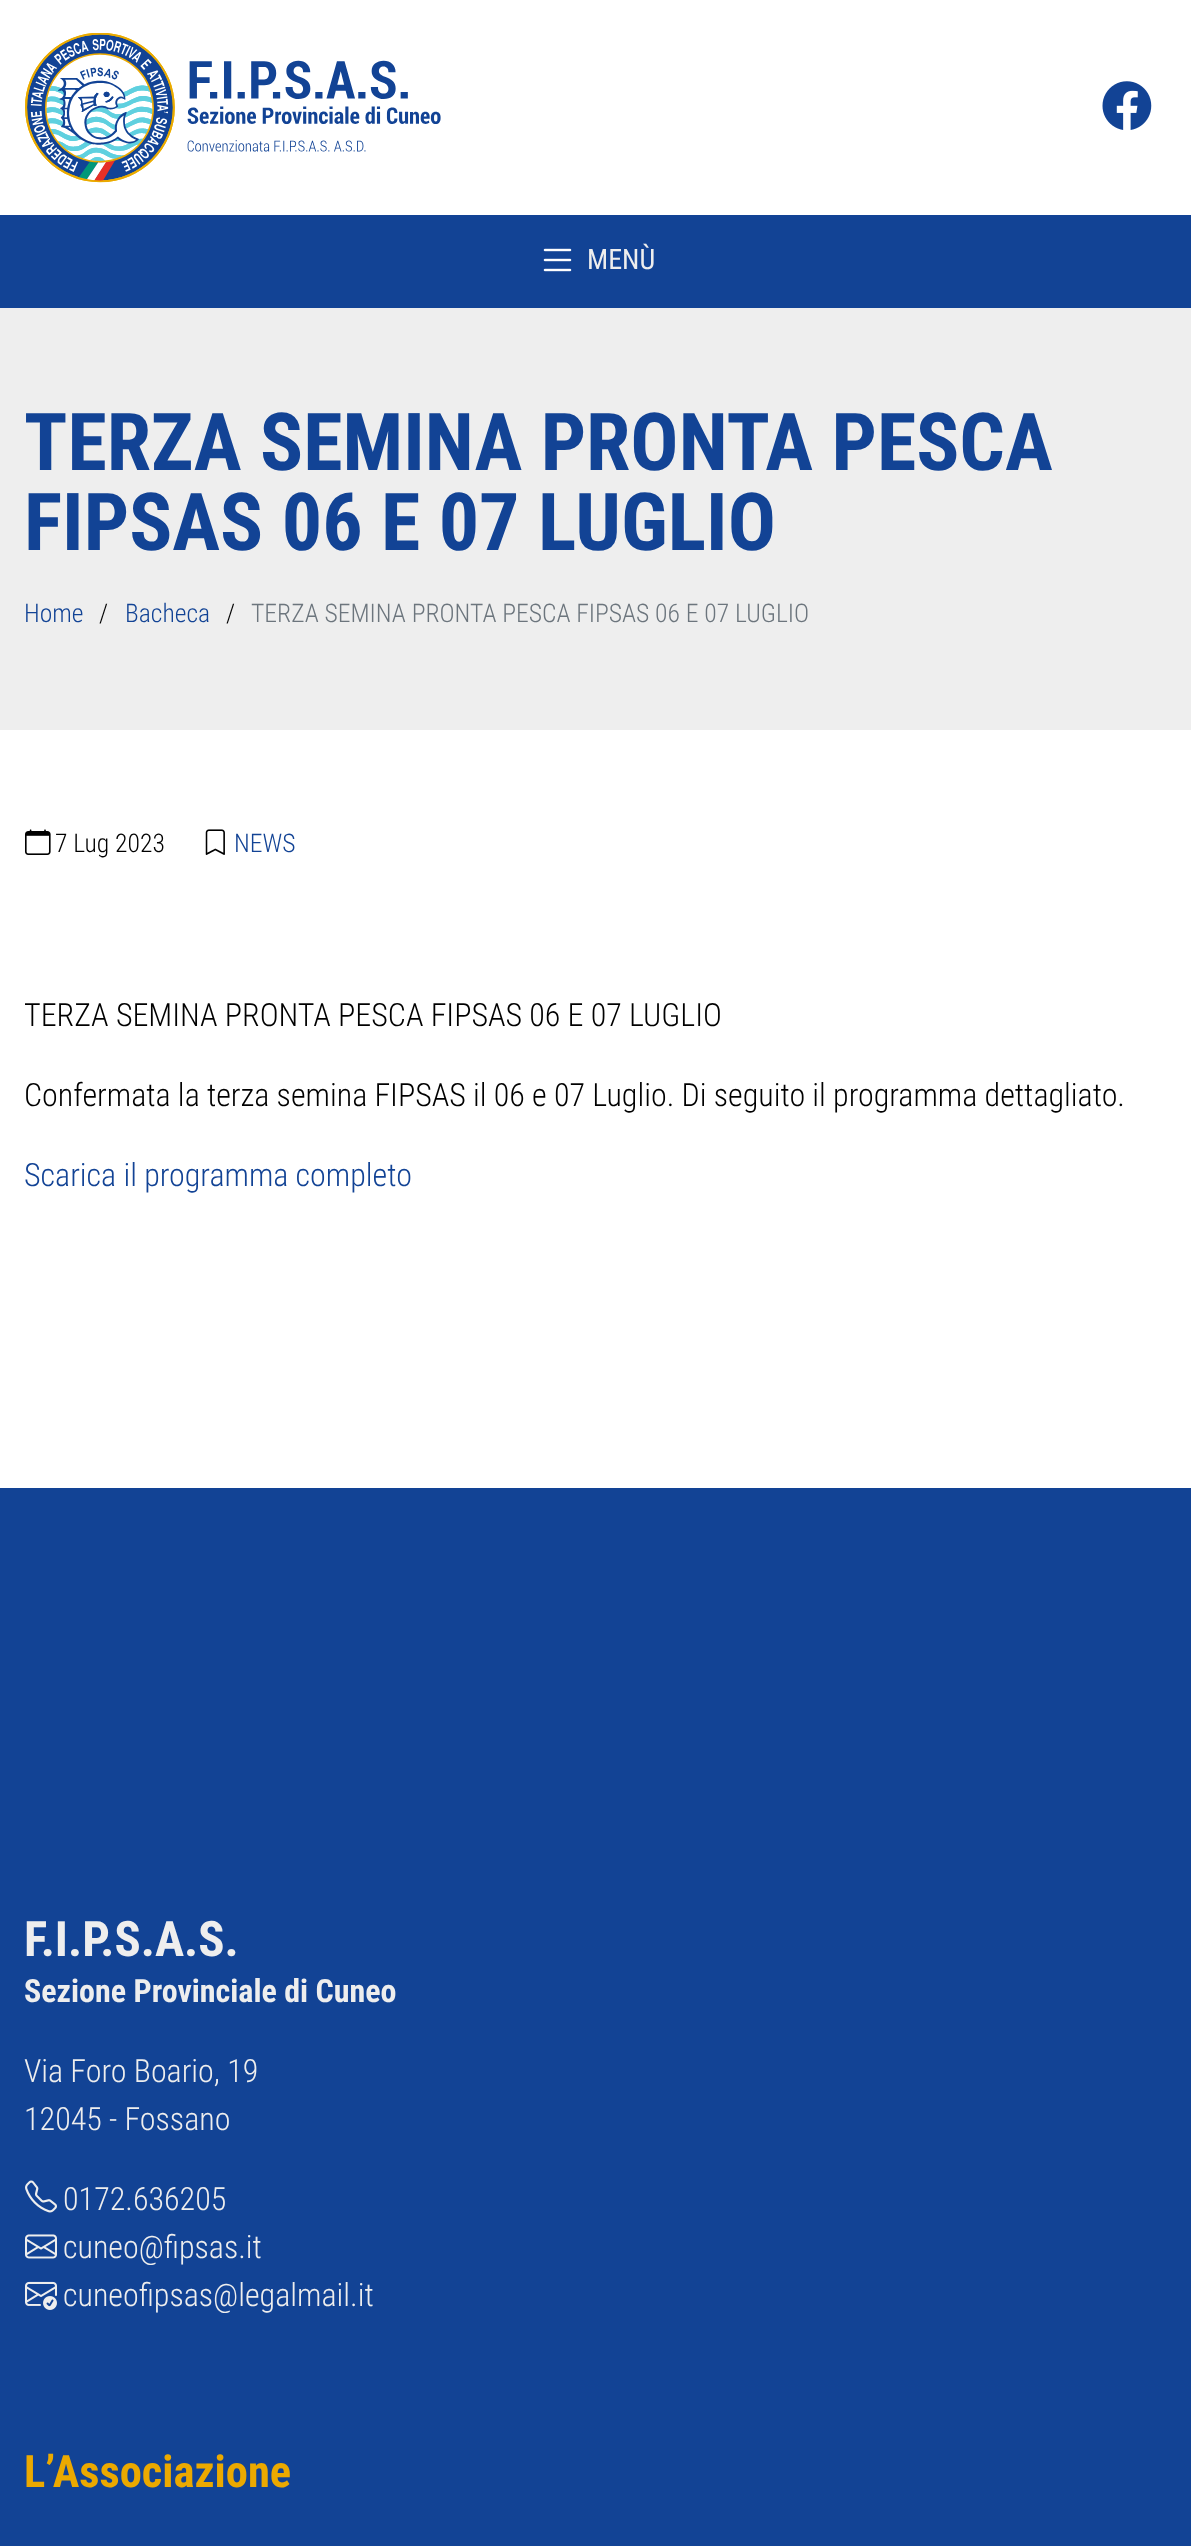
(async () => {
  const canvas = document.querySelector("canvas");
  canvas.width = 1191;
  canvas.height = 2546;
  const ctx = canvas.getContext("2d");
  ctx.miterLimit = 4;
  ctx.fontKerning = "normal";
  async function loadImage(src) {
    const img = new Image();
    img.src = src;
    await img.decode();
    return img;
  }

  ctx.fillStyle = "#ffffff";
  ctx.fillRect(0, 0, 1191, 2546);
  ctx.drawImage(await loadImage("img/1.png"), 25, 33, 416, 150);
  ctx.drawImage(await loadImage("img/2.png"), 1102, 81, 50, 49);
  ctx.fillStyle = "#124395";
  ctx.fillRect(0, 215, 1191, 93);
  ctx.drawImage(await loadImage("img/3.png"), 543, 248, 29, 24);
  ctx.fillStyle = "#eeeeee";
  ctx.fillRect(0, 308, 1191, 422);
  ctx.drawImage(await loadImage("img/4.png"), 25, 829, 26, 26);
  ctx.drawImage(await loadImage("img/5.png"), 205, 829, 20, 26);
  ctx.fillStyle = "#124395";
  ctx.fillRect(0, 1488, 1191, 1058);
  ctx.drawImage(await loadImage("img/6.png"), 25, 2180, 32, 33);
  ctx.drawImage(await loadImage("img/7.png"), 25, 2234, 32, 25);
  ctx.drawImage(await loadImage("img/8.png"), 25, 2281, 32, 29);
  ctx.font = "28px Roboto Condensed";
  ctx.fillStyle = "#eeeeee";
  ctx.fillText("MENÙ", 587, 269);
  ctx.font = "bold 80px Roboto Condensed";
  ctx.fillStyle = "#124395";
  ctx.fillText("TERZA SEMINA PRONTA PESCA", 24, 470);
  ctx.fillText("FIPSAS 06 E 07 LUGLIO", 24, 550);
  ctx.font = "300 25.6px Roboto Condensed";
  ctx.fillText("Home", 24, 622);
  ctx.fillStyle = "#000000";
  ctx.fillText("/", 99, 622);
  ctx.fillStyle = "#124395";
  ctx.fillText("Bacheca", 125, 622);
  ctx.fillStyle = "#000000";
  ctx.fillText("/", 226, 622);
  ctx.fillStyle = "#6c757d";
  ctx.fillText("TERZA SEMINA PRONTA PESCA FIPSAS 06 E 07 LUGLIO", 251, 622);
  ctx.fillStyle = "#000000";
  ctx.fillText("7 Lug 2023", 55, 852);
  ctx.fillStyle = "#124395";
  ctx.fillText("NEWS", 234, 852);
  ctx.font = "300 32px Roboto Condensed";
  ctx.fillStyle = "#000000";
  ctx.fillText("TERZA SEMINA PRONTA PESCA FIPSAS 06 E 07 LUGLIO", 24, 1026);
  ctx.fillText("Confermata la terza semina FIPSAS il 06 e 07 Luglio. Di seguito il programma dettagliato.", 24, 1106);
  ctx.fillStyle = "#124395";
  ctx.fillText("Scarica il programma completo", 24, 1186);
  ctx.font = "bold 48.75px Roboto Condensed";
  ctx.fillStyle = "#eeeeee";
  ctx.fillText("F.I.P.S.A.S.", 24, 1956);
  ctx.font = "bold 32px Roboto Condensed";
  ctx.fillText("Sezione Provinciale di Cuneo", 24, 2002);
  ctx.font = "300 32px Roboto Condensed";
  for (const [text, x, y] of [
    ["Via Foro Boario, 19", 24, 2082],
    ["12045 - Fossano", 24, 2130],
    ["0172.636205", 63, 2210],
    ["cuneo@fipsas.it", 63, 2258],
    ["cuneofipsas@legalmail.it", 63, 2306],
  ]) {
    ctx.fillText(text, x, y);
  }
  ctx.font = "bold 44.5px Roboto Condensed";
  ctx.fillStyle = "#eba900";
  ctx.fillText("L’Associazione", 24, 2487);
})();
